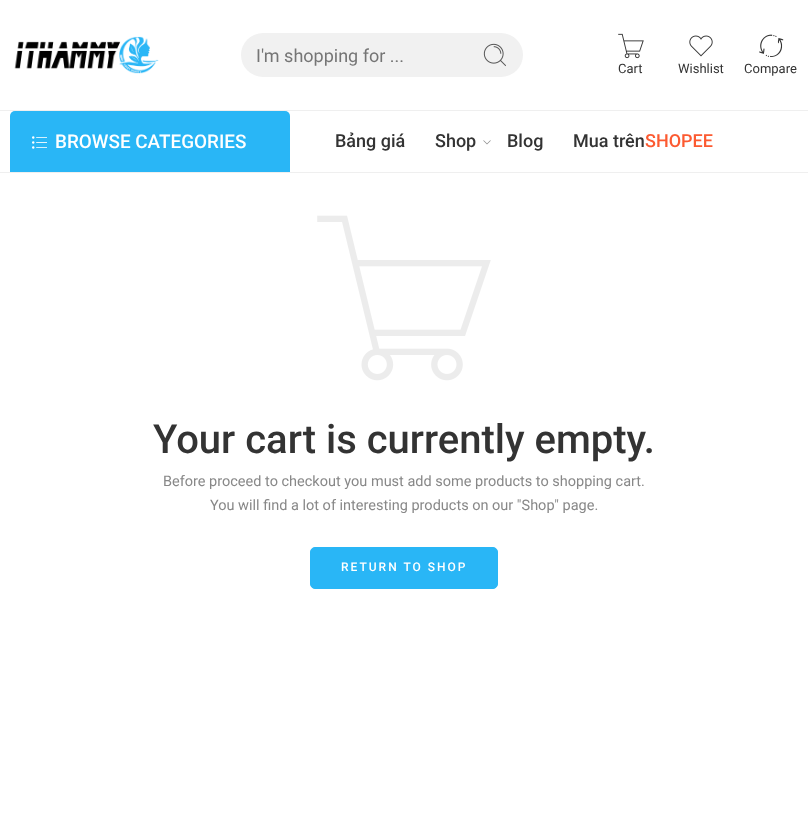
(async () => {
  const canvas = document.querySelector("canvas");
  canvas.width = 808;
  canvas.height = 824;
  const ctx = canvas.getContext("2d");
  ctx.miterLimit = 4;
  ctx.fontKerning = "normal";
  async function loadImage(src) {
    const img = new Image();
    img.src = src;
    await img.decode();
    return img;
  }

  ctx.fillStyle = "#ffffff";
  ctx.fillRect(0, 0, 808, 824);
  ctx.drawImage(await loadImage("img/1.png"), 14, 36, 145, 38);
  ctx.fillStyle = "#f1f1f1";
  ctx.beginPath();
  ctx.roundRect(241, 33, 282, 44, 22);
  ctx.fill();
  ctx.drawImage(await loadImage("img/2.png"), 483, 43, 23, 24);
  ctx.drawImage(await loadImage("img/3.png"), 618, 33, 26, 26);
  ctx.drawImage(await loadImage("img/4.png"), 689, 35, 24, 22);
  ctx.drawImage(await loadImage("img/5.png"), 759, 34, 25, 23);
  ctx.fillStyle = "#efefef";
  ctx.fillRect(0, 110, 808, 1);
  ctx.fillRect(0, 172, 808, 1);
  ctx.fillStyle = "#29b6f6";
  ctx.beginPath();
  ctx.roundRect(10, 111, 280, 61, [5, 5, 0, 0]);
  ctx.fill();
  ctx.drawImage(await loadImage("img/6.png"), 32, 136, 15, 13);
  ctx.drawImage(await loadImage("img/7.png"), 483, 140, 8, 5);
  ctx.drawImage(await loadImage("img/8.png"), 317, 215, 174, 166);
  ctx.beginPath();
  ctx.roundRect(310.5, 547.5, 187, 41, 4.5);
  ctx.fill();
  ctx.strokeStyle = "#29b6f6";
  ctx.stroke();
  ctx.font = "18px Roboto";
  ctx.fillStyle = "#757575";
  ctx.fillText("I'm shopping for ...", 256, 62);
  ctx.font = "13px Roboto";
  ctx.fillStyle = "#333333";
  for (const [text, x, y] of [
    ["Cart", 618, 73],
    ["Wishlist", 678, 73],
    ["Compare", 744, 73],
  ]) {
    ctx.fillText(text, x, y);
  }
  ctx.font = "500 18.9px Roboto";
  ctx.fillStyle = "#ffffff";
  ctx.fillText("BROWSE CATEGORIES", 55, 148);
  ctx.font = "500 18px Roboto";
  ctx.fillStyle = "#333333";
  for (const [text, x, y] of [
    ["Bảng giá", 335, 147],
    ["Shop", 435, 147],
    ["Blog", 507, 147],
    ["Mua trên", 573, 147],
  ]) {
    ctx.fillText(text, x, y);
  }
  ctx.fillStyle = "#fc5a31";
  ctx.fillText("SHOPEE", 645, 147);
  ctx.font = "500 40px Roboto";
  ctx.fillStyle = "#333333";
  ctx.fillText("Your cart is currently empty.", 153, 453);
  ctx.font = "14.5px Roboto";
  ctx.fillStyle = "#888888";
  ctx.fillText("Before proceed to checkout you must add some products to shopping cart.", 163, 486);
  ctx.fillText("You will find a lot of interesting products on our \"Shop\" page.", 210, 510);
  ctx.letterSpacing = "2px";
  ctx.font = "500 12px Roboto";
  ctx.fillStyle = "#ffffff";
  ctx.fillText("RETURN TO SHOP", 341, 571);
})();
